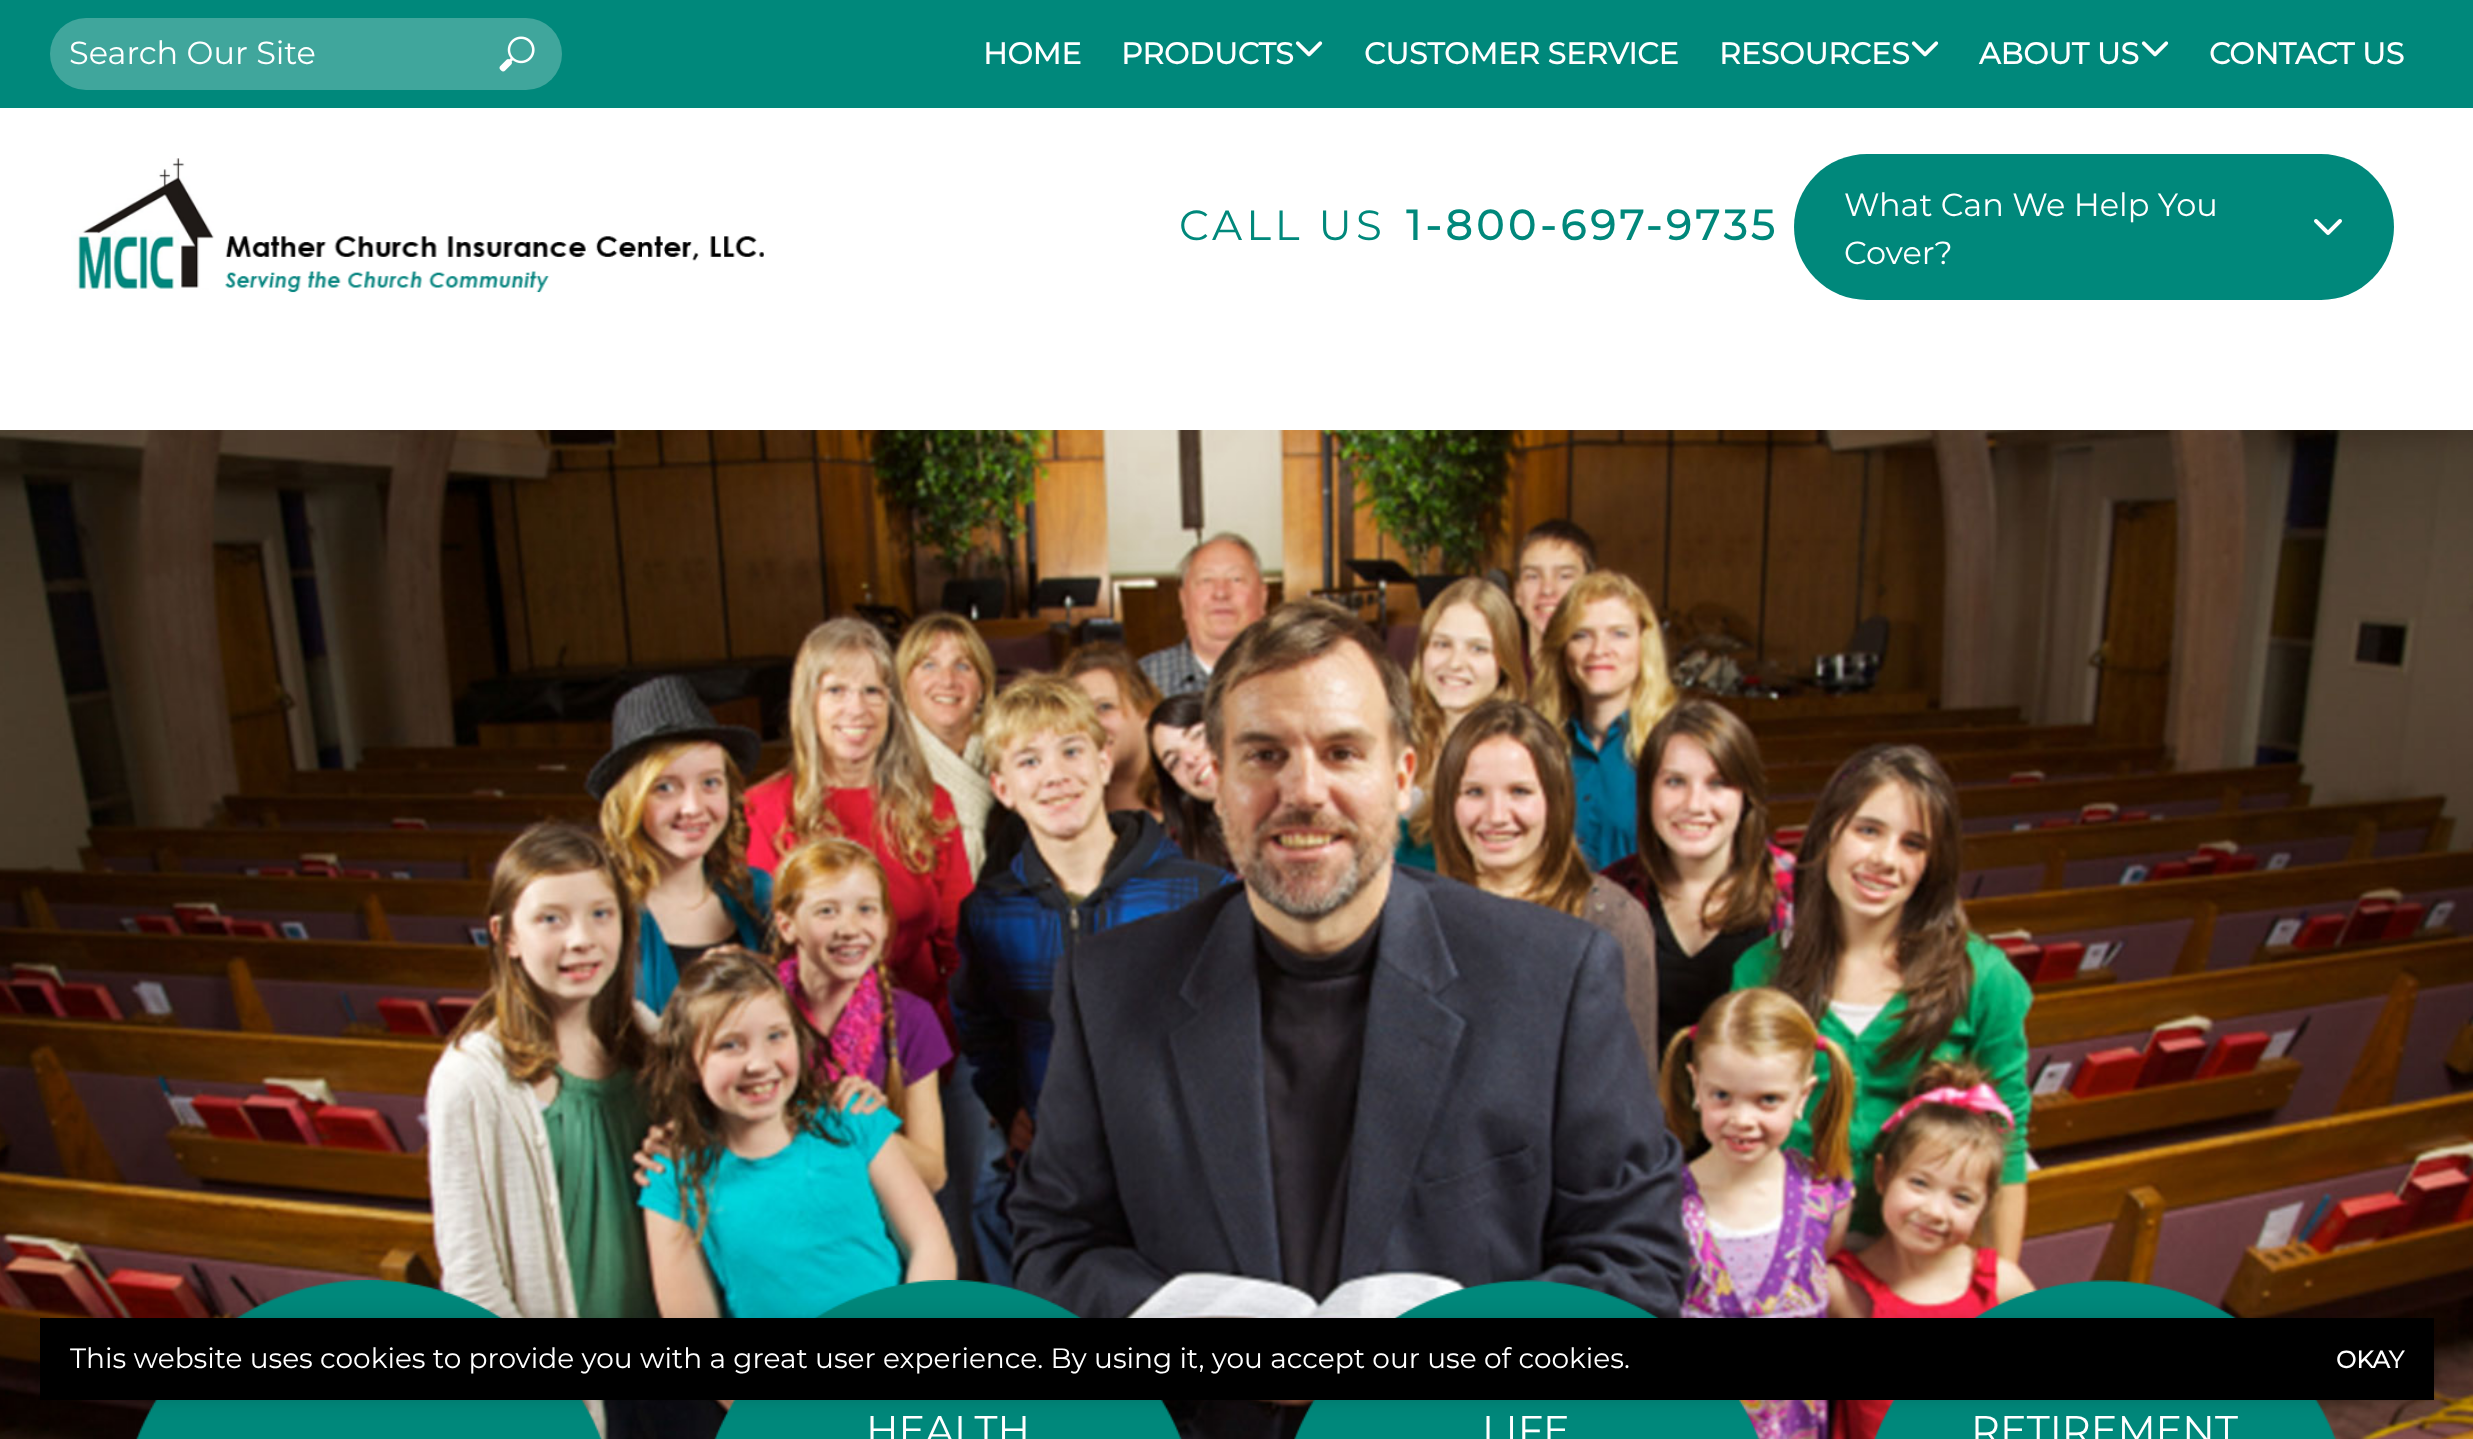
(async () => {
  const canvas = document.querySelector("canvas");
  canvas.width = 2473;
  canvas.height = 1439;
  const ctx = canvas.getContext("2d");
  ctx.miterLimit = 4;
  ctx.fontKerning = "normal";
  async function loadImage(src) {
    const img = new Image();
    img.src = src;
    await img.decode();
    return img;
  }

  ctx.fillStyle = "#ffffff";
  ctx.fillRect(0, 0, 2473, 1439);
  ctx.fillStyle = "#00887b";
  ctx.fillRect(0, 0, 2473, 108);
  ctx.fillStyle = "#40a69c";
  ctx.beginPath();
  ctx.roundRect(50, 18, 512, 72, 36);
  ctx.fill();
  ctx.drawImage(await loadImage("img/1.png"), 499, 36, 36, 36);
  ctx.drawImage(await loadImage("img/2.png"), 1295, 41, 28, 16);
  ctx.drawImage(await loadImage("img/2.png"), 1911, 41, 28, 16);
  ctx.drawImage(await loadImage("img/2.png"), 2141, 41, 28, 16);
  ctx.drawImage(await loadImage("img/3.png"), 71, 158, 693, 135);
  ctx.fillStyle = "#00887b";
  ctx.beginPath();
  ctx.roundRect(1794, 154, 600, 146, 73);
  ctx.fill();
  ctx.drawImage(await loadImage("img/4.png"), 2314, 219, 28, 16);
  ctx.drawImage(await loadImage("img/5.png"), 0, 430, 2473, 1009);
  ctx.drawImage(await loadImage("img/6.png"), 136, 1280, 466, 159);
  ctx.drawImage(await loadImage("img/7.png"), 714, 1280, 468, 159);
  ctx.drawImage(await loadImage("img/8.png"), 1294, 1280, 466, 159);
  ctx.drawImage(await loadImage("img/9.png"), 1873, 1280, 464, 159);
  ctx.fillStyle = "rgba(0, 0, 0, 0.15)";
  ctx.filter = "blur(10px)";
  ctx.beginPath();
  ctx.rect(40, 1318, 2394, 82);
  ctx.fill();
  ctx.filter = "none";
  ctx.fillStyle = "#000000";
  ctx.fillRect(40, 1318, 2394, 82);
  ctx.font = "100 32px Montserrat";
  ctx.fillStyle = "#ffffff";
  ctx.fillText("Search Our Site", 69, 64);
  ctx.font = "bold 30px Montserrat";
  for (const [text, x, y] of [
    ["HOME", 983, 64],
    ["PRODUCTS", 1121, 64],
    ["CUSTOMER SERVICE", 1364, 64],
    ["RESOURCES", 1719, 64],
    ["ABOUT US", 1979, 64],
    ["CONTACT US", 2209, 64],
  ]) {
    ctx.fillText(text, x, y);
  }
  ctx.letterSpacing = "4px";
  ctx.font = "100 42px Montserrat";
  ctx.fillStyle = "#00887b";
  ctx.fillText("CALL US", 1179, 240);
  ctx.font = "bold 42px Montserrat";
  ctx.fillText("1-800-697-9735", 1406, 240);
  ctx.letterSpacing = "0px";
  ctx.font = "100 32px Montserrat";
  ctx.fillStyle = "#ffffff";
  ctx.fillText("What Can We Help You", 1844, 216);
  ctx.fillText("Cover?", 1844, 264);
  ctx.font = "100 28px Montserrat";
  ctx.fillText("This website uses cookies to provide you with a great user experience. By using it, you accept our use of cookies.", 70, 1368);
  ctx.font = "bold 24px Montserrat";
  ctx.fillText("OKAY", 2336, 1368);
  ctx.font = "100 40px Montserrat";
  for (const [text, x, y] of [
    ["HEALTH", 866, 1444],
    ["LIFE", 1482, 1444],
    ["RETIREMENT", 1971, 1444],
  ]) {
    ctx.fillText(text, x, y);
  }
})();
